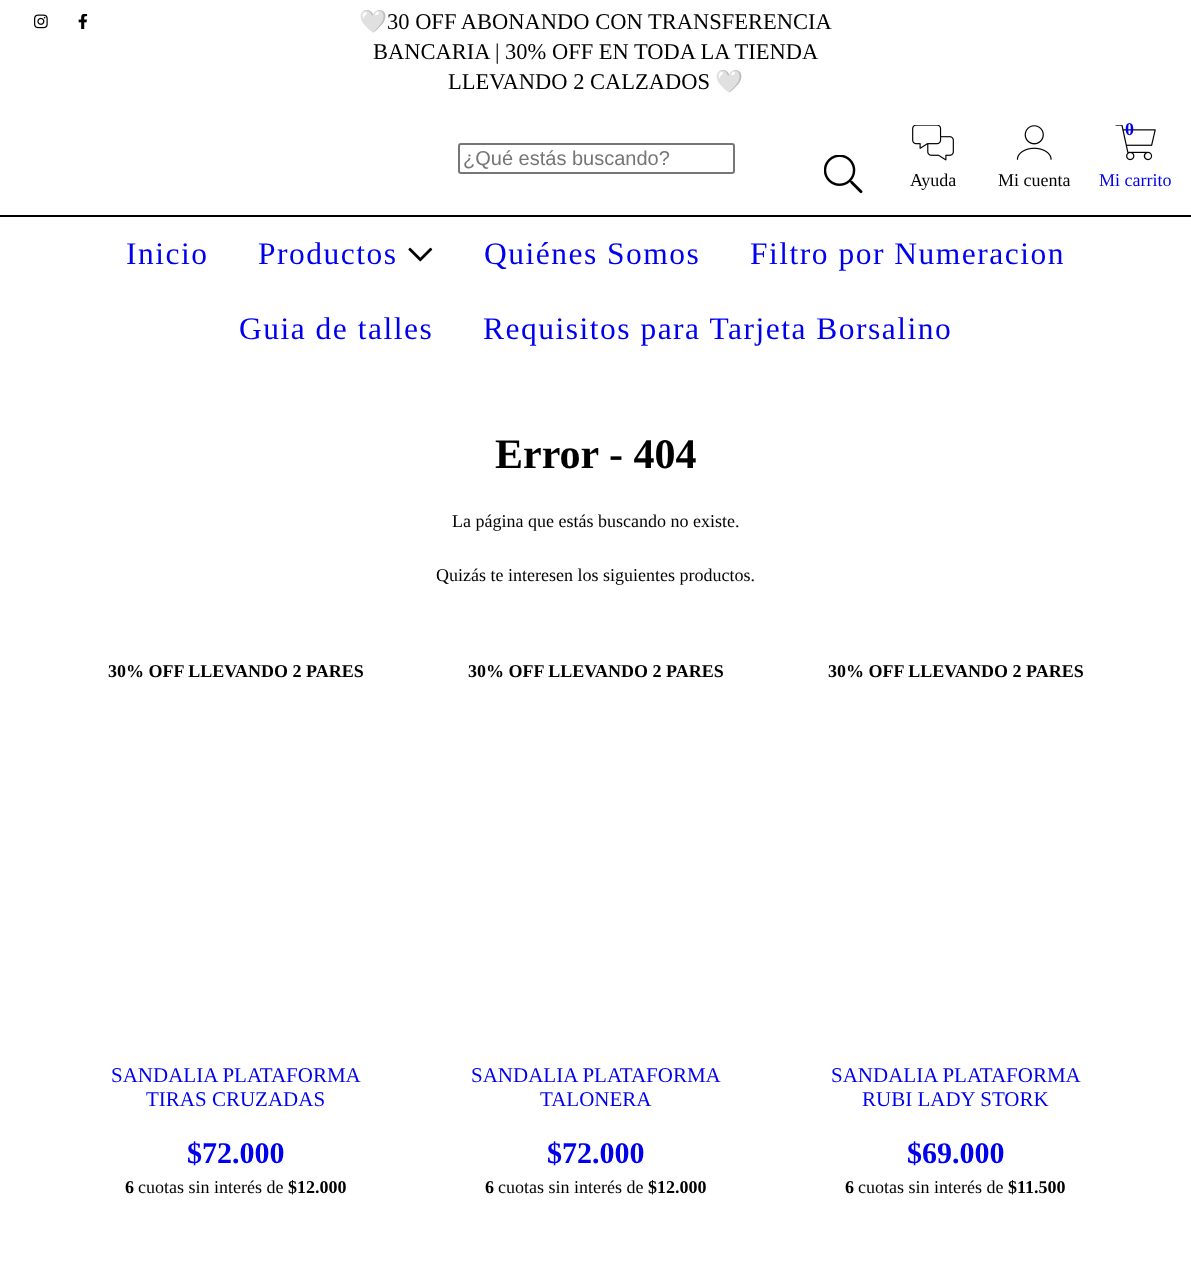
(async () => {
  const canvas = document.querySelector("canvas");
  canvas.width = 1191;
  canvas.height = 1272;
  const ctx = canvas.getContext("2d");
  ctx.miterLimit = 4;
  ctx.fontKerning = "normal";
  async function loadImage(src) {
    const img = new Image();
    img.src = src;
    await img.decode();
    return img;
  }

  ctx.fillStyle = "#ffffff";
  ctx.fillRect(0, 0, 1191, 1272);
  ctx.drawImage(await loadImage("img/1.png"), 34, 14, 14, 15);
  ctx.drawImage(await loadImage("img/2.png"), 78, 14, 10, 15);
  ctx.beginPath();
  ctx.roundRect(459, 144, 275, 29, 2);
  ctx.strokeStyle = "#767676";
  ctx.lineWidth = 2;
  ctx.stroke();
  ctx.drawImage(await loadImage("img/3.png"), 824, 155, 39, 39);
  ctx.drawImage(await loadImage("img/4.png"), 912, 125, 42, 36);
  ctx.drawImage(await loadImage("img/5.png"), 1016, 125, 36, 35);
  ctx.drawImage(await loadImage("img/6.png"), 1115, 125, 41, 36);
  ctx.fillStyle = "#000000";
  ctx.fillRect(0, 215, 1191, 2);
  ctx.drawImage(await loadImage("img/7.png"), 408, 247, 25, 15);
  ctx.font = "22.5px Noto Color Emoji";
  ctx.fillText("🤍", 359, 29);
  ctx.font = "22.5px Liberation Serif";
  for (const [text, x, y] of [
    ["30 OFF ABONANDO CON TRANSFERENCIA", 387, 29],
    ["BANCARIA | 30% OFF EN TODA LA TIENDA", 373, 59],
    ["LLEVANDO 2 CALZADOS", 448, 89],
  ]) {
    ctx.fillText(text, x, y);
  }
  ctx.font = "22.5px Noto Color Emoji";
  ctx.fillText("🤍", 715, 89);
  ctx.font = "20px Liberation Sans";
  ctx.fillStyle = "#757575";
  ctx.fillText("¿Qué estás buscando?", 463, 165);
  ctx.font = "18px Liberation Serif";
  ctx.fillStyle = "#000000";
  ctx.fillText("Ayuda", 910, 186);
  ctx.fillText("Mi cuenta", 998, 186);
  ctx.font = "bold 18px Liberation Serif";
  ctx.fillStyle = "#0000ee";
  ctx.fillText("0", 1125, 135);
  ctx.font = "18px Liberation Serif";
  ctx.fillText("Mi carrito", 1099, 186);
  ctx.letterSpacing = "1.5px";
  ctx.font = "31.5px Liberation Serif";
  for (const [text, x, y] of [
    ["Inicio", 126, 264],
    ["Productos", 258, 264],
    ["Quiénes Somos", 484, 264],
    ["Filtro por Numeracion", 750, 264],
    ["Guia de talles", 239, 339],
    ["Requisitos para Tarjeta Borsalino", 483, 339],
  ]) {
    ctx.fillText(text, x, y);
  }
  ctx.letterSpacing = "0px";
  ctx.font = "bold 42px Liberation Serif";
  ctx.fillStyle = "#000000";
  ctx.fillText("Error - 404", 495, 468);
  ctx.font = "18px Liberation Serif";
  ctx.fillText("La página que estás buscando no existe.", 452, 527);
  ctx.fillText("Quizás te interesen los siguientes productos.", 436, 581);
  ctx.font = "bold 18px Liberation Serif";
  ctx.fillText("30% OFF LLEVANDO 2 PARES", 108, 677);
  ctx.font = "21px Liberation Serif";
  ctx.fillStyle = "#0000ee";
  ctx.fillText("SANDALIA PLATAFORMA", 111, 1082);
  ctx.fillText("TIRAS CRUZADAS", 146, 1106);
  ctx.font = "bold 30px Liberation Serif";
  ctx.fillText("$72.000", 187, 1163);
  ctx.font = "bold 18px Liberation Serif";
  ctx.fillStyle = "#000000";
  ctx.fillText("6", 125, 1193);
  ctx.font = "18px Liberation Serif";
  ctx.fillText("cuotas sin interés de", 138, 1193);
  ctx.font = "bold 18px Liberation Serif";
  ctx.fillText("$12.000", 288, 1193);
  ctx.fillText("30% OFF LLEVANDO 2 PARES", 468, 677);
  ctx.font = "21px Liberation Serif";
  ctx.fillStyle = "#0000ee";
  ctx.fillText("SANDALIA PLATAFORMA", 471, 1082);
  ctx.fillText("TALONERA", 540, 1106);
  ctx.font = "bold 30px Liberation Serif";
  ctx.fillText("$72.000", 547, 1163);
  ctx.font = "bold 18px Liberation Serif";
  ctx.fillStyle = "#000000";
  ctx.fillText("6", 485, 1193);
  ctx.font = "18px Liberation Serif";
  ctx.fillText("cuotas sin interés de", 498, 1193);
  ctx.font = "bold 18px Liberation Serif";
  ctx.fillText("$12.000", 648, 1193);
  ctx.fillText("30% OFF LLEVANDO 2 PARES", 828, 677);
  ctx.font = "21px Liberation Serif";
  ctx.fillStyle = "#0000ee";
  ctx.fillText("SANDALIA PLATAFORMA", 831, 1082);
  ctx.fillText("RUBI LADY STORK", 862, 1106);
  ctx.font = "bold 30px Liberation Serif";
  ctx.fillText("$69.000", 907, 1163);
  ctx.font = "bold 18px Liberation Serif";
  ctx.fillStyle = "#000000";
  ctx.fillText("6", 845, 1193);
  ctx.font = "18px Liberation Serif";
  ctx.fillText("cuotas sin interés de", 858, 1193);
  ctx.font = "bold 18px Liberation Serif";
  ctx.fillText("$11.500", 1008, 1193);
})();
